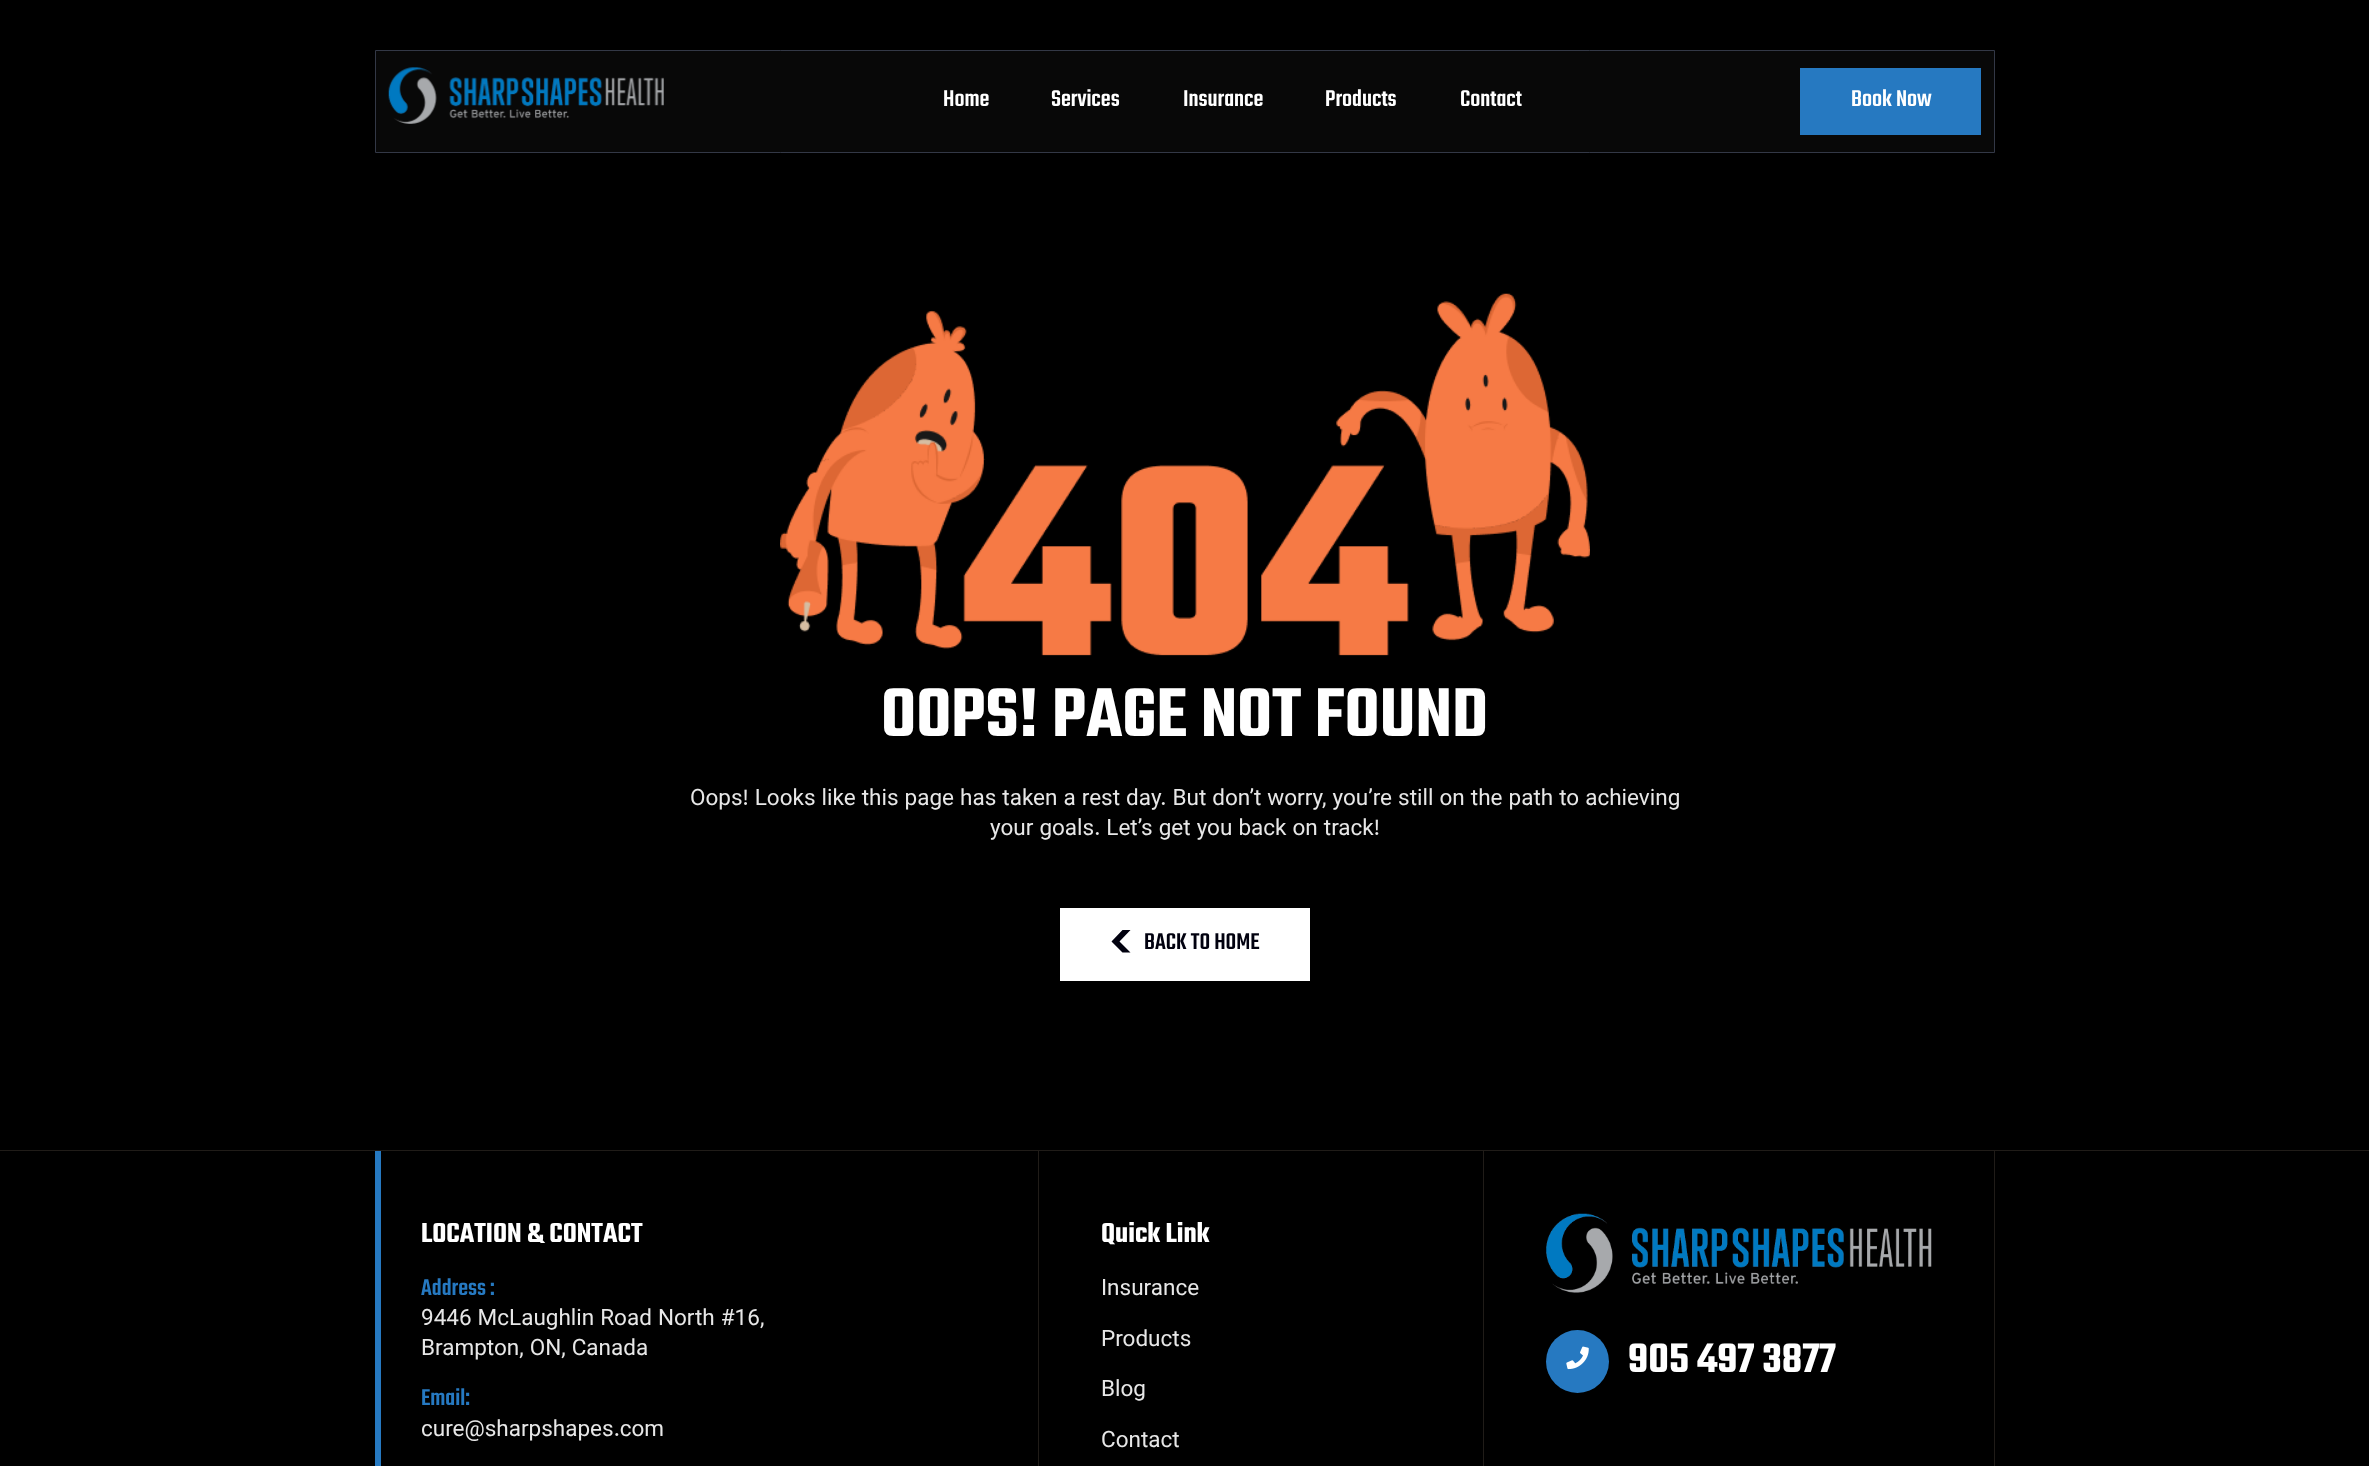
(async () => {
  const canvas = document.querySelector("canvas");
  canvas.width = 2369;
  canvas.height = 1466;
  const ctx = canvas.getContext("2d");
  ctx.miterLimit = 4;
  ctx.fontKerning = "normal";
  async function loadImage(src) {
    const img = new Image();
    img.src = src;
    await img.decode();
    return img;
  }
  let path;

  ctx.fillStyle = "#000000";
  ctx.fillRect(0, 0, 2369, 1466);
  ctx.fillStyle = "#080808";
  ctx.beginPath();
  ctx.rect(375.5, 50.5, 1619, 102);
  ctx.fill();
  ctx.strokeStyle = "#333846";
  ctx.stroke();
  ctx.drawImage(await loadImage("img/1.png"), 388, 67, 276, 57);
  ctx.fillStyle = "#2679c1";
  ctx.fillRect(1800, 68, 181, 67);
  ctx.drawImage(await loadImage("img/2.png"), 780, 293, 810, 363);
  ctx.fillStyle = "#ffffff";
  ctx.fillRect(1060, 908, 250, 73);
  ctx.fillStyle = "#01010f";
  path = new Path2D("M1130.5 952.5L1119.5 941.5L1130.5 930H1122.5L1111.5 941.5L1122.5 952.5Z");
  ctx.fill(path, "evenodd");
  for (const [x, y, w, h, color] of [
    [0, 1150, 2369, 1, "#201c18"],
    [375, 1151, 6, 315, "#2679c1"],
    [1038, 1151, 1, 315, "#201c18"],
    [1994, 1151, 1, 315, "#201c18"],
    [1483, 1151, 1, 315, "#201c18"],
  ]) {
    ctx.fillStyle = color;
    ctx.fillRect(x, y, w, h);
  }
  ctx.drawImage(await loadImage("img/3.png"), 1546, 1213, 386, 80);
  ctx.fillStyle = "#2679c1";
  ctx.beginPath();
  ctx.arc(1577.5, 1361.5, 31.5, 0, Math.PI * 2);
  ctx.fill();
  ctx.drawImage(await loadImage("img/4.png"), 1566, 1346, 23, 24);
  ctx.font = "500 25px Teko";
  ctx.fillStyle = "#ffffff";
  for (const [text, x, y] of [
    ["Home", 943, 106],
    ["Services", 1051, 106],
    ["Insurance", 1183, 106],
    ["Products", 1325, 106],
    ["Contact", 1460, 106],
    ["Book Now", 1851, 106],
  ]) {
    ctx.fillText(text, x, y);
  }
  ctx.font = "600 75px Teko";
  ctx.fillText("OOPS! PAGE NOT FOUND", 881, 736);
  ctx.font = "22.5px Vazirmatn";
  ctx.fillStyle = "#e7e7e7";
  ctx.fillText("Oops! Looks like this page has taken a rest day. But don’t worry, you’re still on the path to achieving", 690, 805);
  ctx.fillText("your goals. Let’s get you back on track!", 990, 835);
  ctx.font = "500 25px Teko";
  ctx.fillStyle = "#01010f";
  ctx.fillText("BACK TO HOME", 1144, 949);
  ctx.font = "600 30px Teko";
  ctx.fillStyle = "#ffffff";
  ctx.fillText("LOCATION & CONTACT", 421, 1242);
  ctx.font = "500 25px Teko";
  ctx.fillStyle = "#2679c1";
  ctx.fillText("Address :", 421, 1295);
  ctx.font = "22.5px Vazirmatn";
  ctx.fillStyle = "#e7e7e7";
  ctx.fillText("9446 McLaughlin Road North #16,", 421, 1325);
  ctx.fillText("Brampton, ON, Canada", 421, 1355);
  ctx.font = "500 25px Teko";
  ctx.fillStyle = "#2679c1";
  ctx.fillText("Email:", 421, 1405);
  ctx.font = "22.5px Vazirmatn";
  ctx.fillStyle = "#e7e7e7";
  ctx.fillText("cure@sharpshapes.com", 421, 1436);
  ctx.font = "600 30px Teko";
  ctx.fillStyle = "#ffffff";
  ctx.fillText("Quick Link", 1101, 1242);
  ctx.font = "22.5px Vazirmatn";
  ctx.fillStyle = "#e7e7e7";
  for (const [text, x, y] of [
    ["Insurance", 1101, 1295],
    ["Products", 1101, 1346],
    ["Blog", 1101, 1396],
    ["Contact", 1101, 1447],
  ]) {
    ctx.fillText(text, x, y);
  }
  ctx.font = "600 45px Teko";
  ctx.fillStyle = "#ffffff";
  ctx.fillText("905 497 3877", 1628, 1372);
})();
